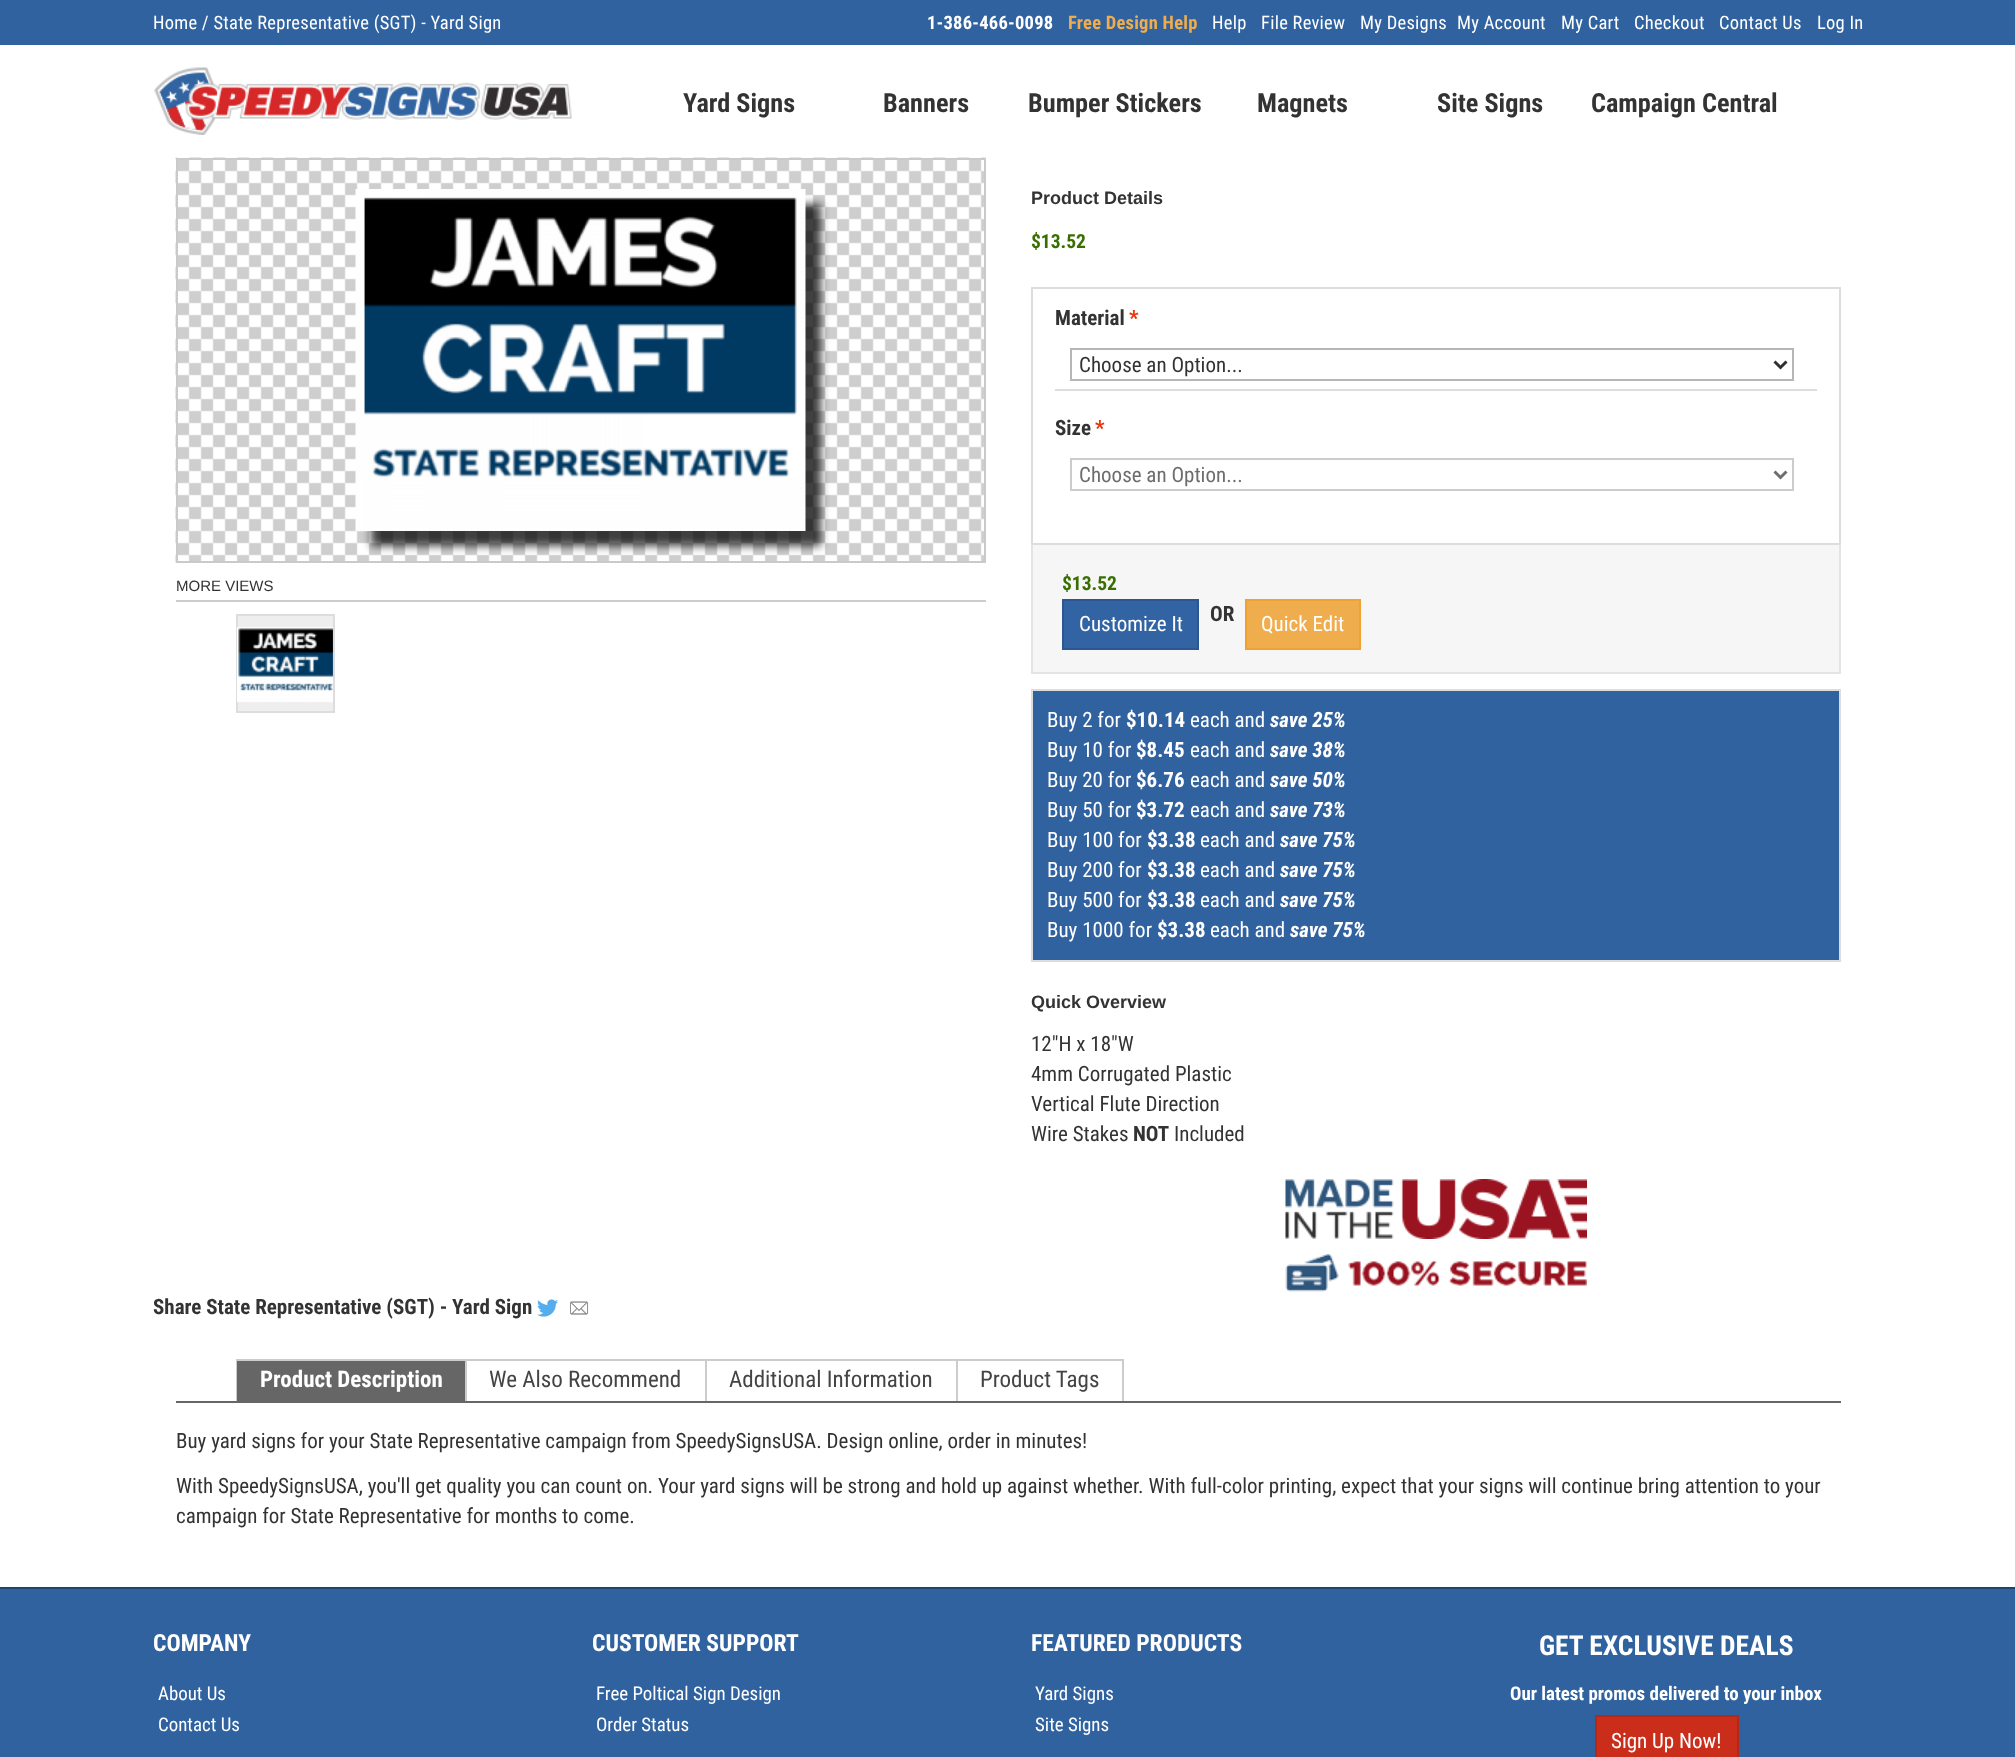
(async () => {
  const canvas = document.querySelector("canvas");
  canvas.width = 2015;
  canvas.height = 1757;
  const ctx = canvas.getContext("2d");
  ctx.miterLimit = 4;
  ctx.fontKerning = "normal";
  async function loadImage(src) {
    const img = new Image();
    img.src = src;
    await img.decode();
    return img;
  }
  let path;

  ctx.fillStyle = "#2f629f";
  ctx.fillRect(0, 0, 2015, 1757);
  ctx.fillStyle = "#ffffff";
  ctx.fillRect(0, 45, 2015, 1542);
  ctx.drawImage(await loadImage("img/1.png"), 154, 67, 418, 68);
  ctx.drawImage(await loadImage("img/2.png"), 175, 157, 811, 406);
  ctx.strokeStyle = "#cacaca";
  ctx.lineWidth = 2;
  ctx.strokeRect(177, 159, 808, 403);
  ctx.fillStyle = "rgba(0, 0, 0, 0.75)";
  ctx.filter = "blur(4px)";
  ctx.beginPath();
  ctx.rect(371, 204, 450, 342);
  ctx.fill();
  ctx.filter = "none";
  ctx.drawImage(await loadImage("img/3.png"), 355, 189, 451, 342);
  ctx.fillStyle = "#cccccc";
  ctx.fillRect(176, 600, 810, 2);
  ctx.fillStyle = "#eeeeee";
  ctx.beginPath();
  ctx.rect(237, 615, 97, 97);
  ctx.fill();
  ctx.strokeStyle = "#dddddd";
  ctx.stroke();
  ctx.drawImage(await loadImage("img/4.png"), 237, 626, 96, 77);
  ctx.strokeRect(1032, 288, 808, 256);
  ctx.fillStyle = "#dddddd";
  ctx.fillRect(1055, 389, 762, 2);
  ctx.strokeStyle = "#b6b6b6";
  ctx.strokeRect(1071, 349, 722, 31);
  path = new Path2D("M1774.5 361.5L1780.5 367.5L1786.5 361.5");
  ctx.strokeStyle = "#2f2f2f";
  ctx.lineWidth = 3;
  ctx.stroke(path);
  ctx.strokeStyle = "#cccccc";
  ctx.lineWidth = 2;
  ctx.strokeRect(1071, 459, 722, 31);
  path = new Path2D("M1774.5 471.5L1780.5 477.5L1786.5 471.5");
  ctx.strokeStyle = "#6d6d6d";
  ctx.lineWidth = 3;
  ctx.stroke(path);
  for (const [x, y, w, h, color] of [
    [1033, 545, 806, 127, "#f6f6f6"],
    [1839, 545, 2, 129, "#e4e4e4"],
    [1031, 672, 810, 2, "#e4e4e4"],
    [1031, 545, 2, 129, "#e4e4e4"],
  ]) {
    ctx.fillStyle = color;
    ctx.fillRect(x, y, w, h);
  }
  ctx.fillStyle = "#3264a3";
  ctx.beginPath();
  ctx.rect(1063, 600, 135, 49);
  ctx.fill();
  ctx.strokeStyle = "#2c588f";
  ctx.lineWidth = 2;
  ctx.stroke();
  ctx.fillStyle = "#f0ad4e";
  ctx.beginPath();
  ctx.rect(1246, 600, 114, 49);
  ctx.fill();
  ctx.strokeStyle = "#eea236";
  ctx.stroke();
  ctx.fillStyle = "#3162a0";
  ctx.beginPath();
  ctx.rect(1032, 690, 808, 271);
  ctx.fill();
  ctx.strokeStyle = "#dddddd";
  ctx.stroke();
  ctx.drawImage(await loadImage("img/5.png"), 1285, 1179, 302, 60);
  ctx.drawImage(await loadImage("img/6.png"), 1285, 1254, 302, 38);
  ctx.drawImage(await loadImage("img/7.png"), 537, 1299, 21, 18);
  ctx.drawImage(await loadImage("img/8.png"), 570, 1301, 19, 14);
  for (const [x, y, w, h, color] of [
    [176, 1401, 1665, 2, "#666666"],
    [236, 1359, 721, 2, "#cccccc"],
    [465, 1359, 2, 42, "#cccccc"],
    [236, 1359, 2, 42, "#cccccc"],
    [237, 1361, 228, 40, "#666666"],
    [705, 1359, 2, 42, "#cccccc"],
    [956, 1359, 2, 42, "#cccccc"],
    [957, 1359, 167, 2, "#cccccc"],
    [1122, 1359, 2, 42, "#cccccc"],
    [0, 1587, 2015, 2, "#1f4371"],
  ]) {
    ctx.fillStyle = color;
    ctx.fillRect(x, y, w, h);
  }
  ctx.fillStyle = "#ca2d1a";
  ctx.beginPath();
  ctx.rect(1596, 1716, 142, 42);
  ctx.fill();
  ctx.strokeStyle = "#b32817";
  ctx.stroke();
  ctx.letterSpacing = "0.25px";
  ctx.font = "18.5px Roboto Condensed";
  ctx.fillStyle = "#ffffff";
  ctx.fillText("Home / State Representative (SGT) - Yard Sign", 153, 29);
  ctx.font = "bold 18.5px Roboto Condensed";
  ctx.fillText("1-386-466-0098", 927, 29);
  ctx.fillStyle = "#f0ad4e";
  ctx.fillText("Free Design Help", 1068, 29);
  ctx.font = "18.5px Roboto Condensed";
  ctx.fillStyle = "#ffffff";
  for (const [text, x, y] of [
    ["Help", 1212, 29],
    ["File Review", 1261, 29],
    ["My Designs", 1360, 29],
    ["My Account", 1457, 29],
    ["My Cart", 1561, 29],
    ["Checkout", 1634, 29],
    ["Contact Us", 1719, 29],
    ["Log In", 1817, 29],
  ]) {
    ctx.fillText(text, x, y);
  }
  ctx.letterSpacing = "0px";
  ctx.font = "bold 26.25px Roboto Condensed";
  ctx.fillStyle = "#333333";
  for (const [text, x, y] of [
    ["Yard Signs", 683, 112],
    ["Banners", 883, 112],
    ["Bumper Stickers", 1028, 112],
    ["Magnets", 1257, 112],
    ["Site Signs", 1437, 112],
    ["Campaign Central", 1591, 112],
  ]) {
    ctx.fillText(text, x, y);
  }
  ctx.font = "15px Liberation Sans";
  ctx.fillText("MORE VIEWS", 176, 591);
  ctx.font = "bold 18px Liberation Sans";
  ctx.fillText("Product Details", 1031, 204);
  ctx.font = "bold 19.5px Roboto Condensed";
  ctx.fillStyle = "#396f00";
  ctx.fillText("$13.52", 1031, 248);
  ctx.font = "bold 21px Roboto Condensed";
  ctx.fillStyle = "#333333";
  ctx.fillText("Material", 1055, 325);
  ctx.fillStyle = "#eb340a";
  ctx.fillText("*", 1129, 325);
  ctx.font = "21px Roboto Condensed";
  ctx.fillStyle = "#333333";
  ctx.fillText("Choose an Option...", 1079, 372);
  ctx.font = "bold 21px Roboto Condensed";
  ctx.fillText("Size", 1055, 435);
  ctx.fillStyle = "#eb340a";
  ctx.fillText("*", 1095, 435);
  ctx.font = "21px Roboto Condensed";
  ctx.fillStyle = "#6d6d6d";
  ctx.fillText("Choose an Option...", 1079, 482);
  ctx.font = "bold 19.5px Roboto Condensed";
  ctx.fillStyle = "#396f00";
  ctx.fillText("$13.52", 1062, 590);
  ctx.font = "21px Roboto Condensed";
  ctx.fillStyle = "#ffffff";
  ctx.fillText("Customize It", 1079, 631);
  ctx.font = "bold 21px Roboto Condensed";
  ctx.fillStyle = "#333333";
  ctx.fillText("OR", 1210, 621);
  ctx.font = "21px Roboto Condensed";
  ctx.fillStyle = "#ffffff";
  ctx.fillText("Quick Edit", 1261, 631);
  ctx.fillText("Buy 2 for", 1047, 727);
  ctx.font = "bold 21px Roboto Condensed";
  ctx.fillText("$10.14", 1126, 727);
  ctx.font = "21px Roboto Condensed";
  ctx.fillText("each and", 1190, 727);
  ctx.font = "italic bold 21px Roboto Condensed";
  ctx.fillText("save 25%", 1270, 727);
  ctx.font = "21px Roboto Condensed";
  ctx.fillText("Buy 10 for", 1047, 757);
  ctx.font = "bold 21px Roboto Condensed";
  ctx.fillText("$8.45", 1136, 757);
  ctx.font = "21px Roboto Condensed";
  ctx.fillText("each and", 1190, 757);
  ctx.font = "italic bold 21px Roboto Condensed";
  ctx.fillText("save 38%", 1270, 757);
  ctx.font = "21px Roboto Condensed";
  ctx.fillText("Buy 20 for", 1047, 787);
  ctx.font = "bold 21px Roboto Condensed";
  ctx.fillText("$6.76", 1136, 787);
  ctx.font = "21px Roboto Condensed";
  ctx.fillText("each and", 1190, 787);
  ctx.font = "italic bold 21px Roboto Condensed";
  ctx.fillText("save 50%", 1270, 787);
  ctx.font = "21px Roboto Condensed";
  ctx.fillText("Buy 50 for", 1047, 817);
  ctx.font = "bold 21px Roboto Condensed";
  ctx.fillText("$3.72", 1136, 817);
  ctx.font = "21px Roboto Condensed";
  ctx.fillText("each and", 1190, 817);
  ctx.font = "italic bold 21px Roboto Condensed";
  ctx.fillText("save 73%", 1270, 817);
  ctx.font = "21px Roboto Condensed";
  ctx.fillText("Buy 100 for", 1047, 847);
  ctx.font = "bold 21px Roboto Condensed";
  ctx.fillText("$3.38", 1147, 847);
  ctx.font = "21px Roboto Condensed";
  ctx.fillText("each and", 1200, 847);
  ctx.font = "italic bold 21px Roboto Condensed";
  ctx.fillText("save 75%", 1280, 847);
  ctx.font = "21px Roboto Condensed";
  ctx.fillText("Buy 200 for", 1047, 877);
  ctx.font = "bold 21px Roboto Condensed";
  ctx.fillText("$3.38", 1147, 877);
  ctx.font = "21px Roboto Condensed";
  ctx.fillText("each and", 1200, 877);
  ctx.font = "italic bold 21px Roboto Condensed";
  ctx.fillText("save 75%", 1280, 877);
  ctx.font = "21px Roboto Condensed";
  ctx.fillText("Buy 500 for", 1047, 907);
  ctx.font = "bold 21px Roboto Condensed";
  ctx.fillText("$3.38", 1147, 907);
  ctx.font = "21px Roboto Condensed";
  ctx.fillText("each and", 1200, 907);
  ctx.font = "italic bold 21px Roboto Condensed";
  ctx.fillText("save 75%", 1280, 907);
  ctx.font = "21px Roboto Condensed";
  ctx.fillText("Buy 1000 for", 1047, 937);
  ctx.font = "bold 21px Roboto Condensed";
  ctx.fillText("$3.38", 1157, 937);
  ctx.font = "21px Roboto Condensed";
  ctx.fillText("each and", 1210, 937);
  ctx.font = "italic bold 21px Roboto Condensed";
  ctx.fillText("save 75%", 1290, 937);
  ctx.font = "bold 18px Liberation Sans";
  ctx.fillStyle = "#333333";
  ctx.fillText("Quick Overview", 1031, 1008);
  ctx.font = "21px Roboto Condensed";
  for (const [text, x, y] of [
    ["12\"H x 18\"W", 1031, 1051],
    ["4mm Corrugated Plastic", 1031, 1081],
    ["Vertical Flute Direction", 1031, 1111],
    ["Wire Stakes", 1031, 1141],
  ]) {
    ctx.fillText(text, x, y);
  }
  ctx.font = "bold 21px Roboto Condensed";
  ctx.fillText("NOT", 1133, 1141);
  ctx.font = "21px Roboto Condensed";
  ctx.fillText("Included", 1174, 1141);
  ctx.font = "bold 21px Roboto Condensed";
  ctx.fillText("Share State Representative (SGT) - Yard Sign", 153, 1314);
  ctx.font = "bold 23px Roboto Condensed";
  ctx.fillStyle = "#ffffff";
  ctx.fillText("Product Description", 260, 1387);
  ctx.font = "23px Roboto Condensed";
  ctx.fillStyle = "#444444";
  for (const [text, x, y] of [
    ["We Also Recommend", 489, 1387],
    ["Additional Information", 729, 1387],
    ["Product Tags", 980, 1387],
  ]) {
    ctx.fillText(text, x, y);
  }
  ctx.font = "21px Roboto Condensed";
  ctx.fillStyle = "#333333";
  for (const [text, x, y] of [
    ["Buy yard signs for your State Representative campaign from SpeedySignsUSA. Design online, order in minutes!", 176, 1448],
    ["With SpeedySignsUSA, you'll get quality you can count on. Your yard signs will be strong and hold up against whether. With full-color printing, expect that your signs will continue bring attention to your", 176, 1493],
    ["campaign for State Representative for months to come.", 176, 1523],
  ]) {
    ctx.fillText(text, x, y);
  }
  ctx.font = "bold 23.6px Roboto Condensed";
  ctx.fillStyle = "#ffffff";
  ctx.fillText("COMPANY", 153, 1651);
  ctx.font = "18.9px Roboto Condensed";
  ctx.fillText("About Us", 158, 1700);
  ctx.fillText("Contact Us", 158, 1731);
  ctx.font = "bold 23.6px Roboto Condensed";
  ctx.fillText("CUSTOMER SUPPORT", 592, 1651);
  ctx.font = "18.9px Roboto Condensed";
  ctx.fillText("Free Poltical Sign Design", 596, 1700);
  ctx.fillText("Order Status", 596, 1731);
  ctx.font = "bold 23.6px Roboto Condensed";
  ctx.fillText("FEATURED PRODUCTS", 1031, 1651);
  ctx.font = "18.9px Roboto Condensed";
  ctx.fillText("Yard Signs", 1035, 1700);
  ctx.fillText("Site Signs", 1035, 1731);
  ctx.font = "bold 27.5px Roboto Condensed";
  ctx.fillText("GET EXCLUSIVE DEALS", 1539, 1655);
  ctx.font = "bold 18.9px Roboto Condensed";
  ctx.fillText("Our latest promos delivered to your inbox", 1510, 1700);
  ctx.font = "21px Roboto Condensed";
  ctx.fillText("Sign Up Now!", 1611, 1748);
})();
